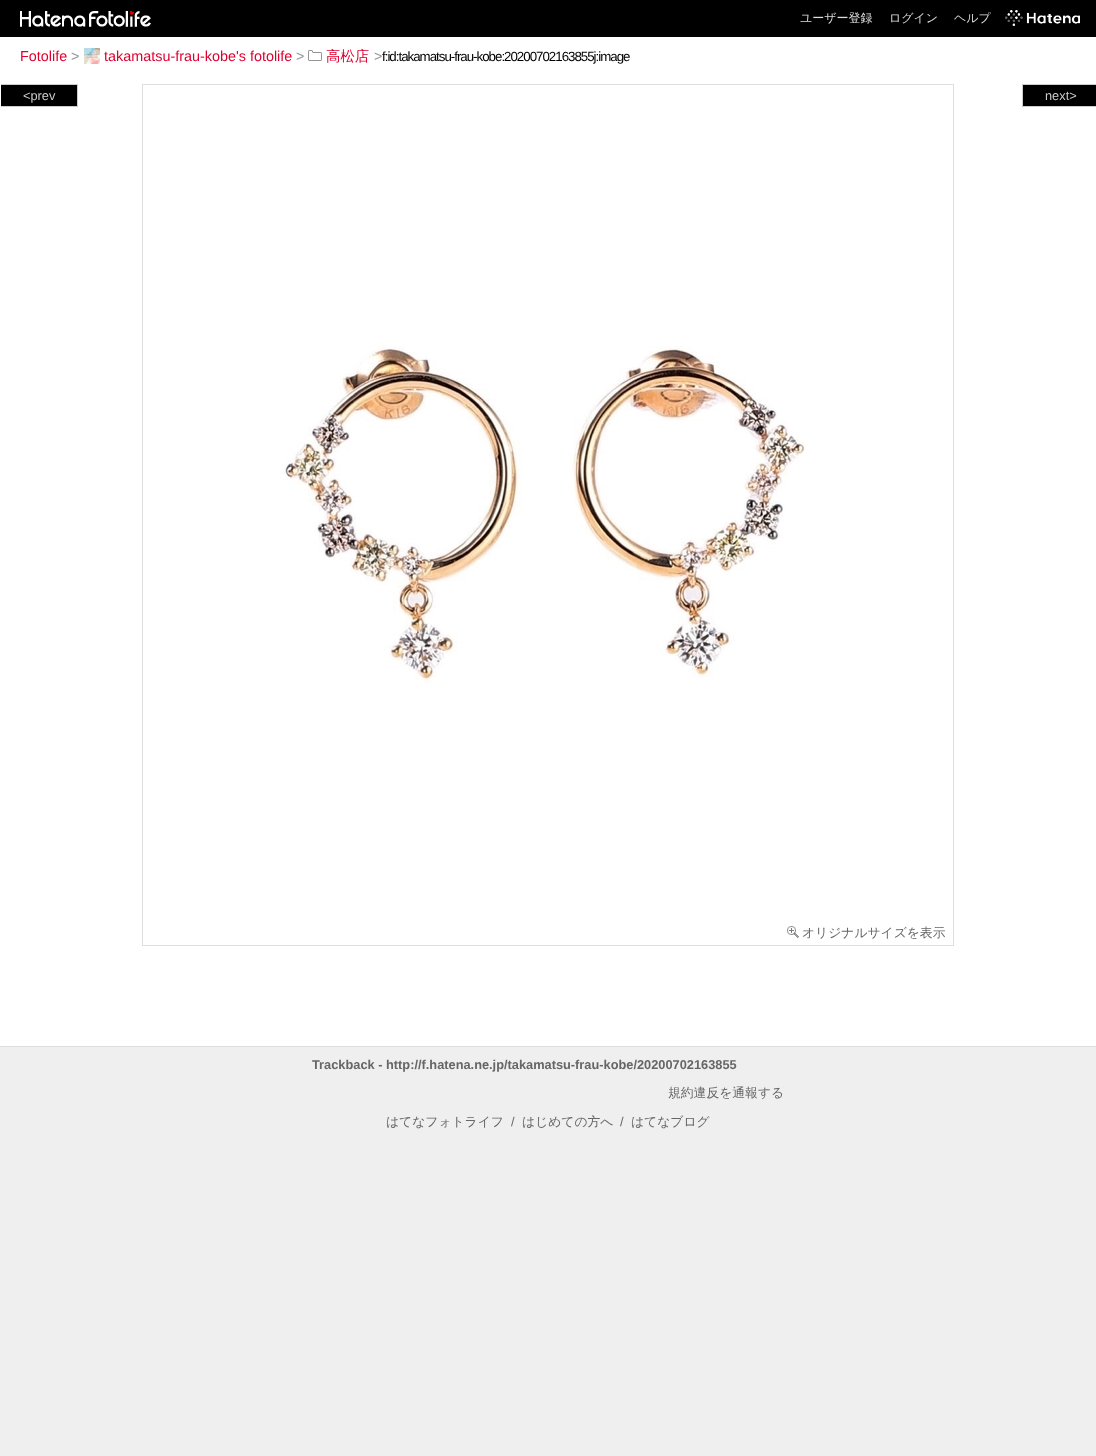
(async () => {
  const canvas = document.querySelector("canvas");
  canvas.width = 1096;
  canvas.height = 1456;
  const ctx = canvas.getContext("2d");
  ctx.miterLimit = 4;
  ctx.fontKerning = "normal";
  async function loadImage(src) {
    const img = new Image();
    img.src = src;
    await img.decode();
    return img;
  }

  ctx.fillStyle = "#efefef";
  ctx.fillRect(0, 0, 1096, 1456);
  ctx.fillStyle = "#000000";
  ctx.fillRect(0, 0, 1096, 37);
  ctx.drawImage(await loadImage("img/1.png"), 20, 11, 66, 16);
  ctx.drawImage(await loadImage("img/2.png"), 89, 11, 62, 16);
  ctx.drawImage(await loadImage("img/3.png"), 1005, 10, 75, 16);
  ctx.fillStyle = "#ffffff";
  ctx.fillRect(0, 37, 1096, 1009);
  ctx.drawImage(await loadImage("img/4.png"), 84, 48, 16, 16);
  ctx.drawImage(await loadImage("img/5.png"), 308, 50, 14, 11);
  for (const [x, y, w, h, color] of [
    [0, 1046, 1096, 1, "#dedede"],
    [1, 85, 76, 21, "#000000"],
    [1, 84, 77, 1, "#cccccc"],
    [77, 84, 1, 23, "#cccccc"],
    [1, 106, 77, 1, "#cccccc"],
    [1023, 85, 73, 21, "#000000"],
    [1022, 84, 74, 1, "#cccccc"],
    [1022, 106, 74, 1, "#cccccc"],
    [1022, 84, 1, 23, "#cccccc"],
  ]) {
    ctx.fillStyle = color;
    ctx.fillRect(x, y, w, h);
  }
  ctx.strokeStyle = "#dedede";
  ctx.strokeRect(142.5, 84.5, 811, 861);
  ctx.drawImage(await loadImage("img/6.png"), 282, 346, 523, 338);
  ctx.drawImage(await loadImage("img/7.png"), 787, 926, 12, 12);
  ctx.font = "500 12px WenQuanYi Zen Hei";
  ctx.fillStyle = "#dddddd";
  for (const [text, x, y] of [
    ["ユーザー登録", 800, 22],
    ["ログイン", 889, 22],
    ["ヘルプ", 954, 22],
  ]) {
    ctx.fillText(text, x, y);
  }
  ctx.font = "14.4px Liberation Sans";
  ctx.fillStyle = "#de002f";
  ctx.fillText("Fotolife", 20, 61);
  ctx.fillStyle = "#999999";
  ctx.fillText(">", 71, 61);
  ctx.fillStyle = "#de002f";
  ctx.fillText("takamatsu-frau-kobe's fotolife", 104, 61);
  ctx.fillStyle = "#999999";
  ctx.fillText(">", 296, 61);
  ctx.font = "500 14.4px WenQuanYi Zen Hei";
  ctx.fillStyle = "#de002f";
  ctx.fillText("高松店", 326, 61);
  ctx.font = "14.4px Liberation Sans";
  ctx.fillStyle = "#999999";
  ctx.fillText(">", 374, 61);
  ctx.letterSpacing = "-1px";
  ctx.font = "13.3px Liberation Sans";
  ctx.fillStyle = "#000000";
  ctx.fillText("f:id:takamatsu-frau-kobe:20200702163855j:image", 382, 61);
  ctx.letterSpacing = "0px";
  ctx.font = "12.8px Liberation Sans";
  ctx.fillStyle = "#cccccc";
  ctx.fillText("<prev", 23, 100);
  ctx.fillText("next>", 1045, 100);
  ctx.font = "500 12.8px WenQuanYi Zen Hei";
  ctx.fillStyle = "#666666";
  ctx.fillText("オリジナルサイズを表示", 802, 937);
  ctx.font = "bold 12.8px Liberation Sans";
  ctx.fillText("Trackback - http://f.hatena.ne.jp/takamatsu-frau-kobe/20200702163855", 312, 1069);
  ctx.font = "500 12.8px WenQuanYi Zen Hei";
  ctx.fillText("規約違反を通報する", 668, 1097);
  ctx.fillText("はてなフォトライフ", 386, 1126);
  ctx.font = "12.8px Liberation Sans";
  ctx.fillText("/", 511, 1126);
  ctx.font = "500 12.8px WenQuanYi Zen Hei";
  ctx.fillText("はじめての方へ", 522, 1126);
  ctx.font = "12.8px Liberation Sans";
  ctx.fillText("/", 620, 1126);
  ctx.font = "500 12.8px WenQuanYi Zen Hei";
  ctx.fillText("はてなブログ", 631, 1126);
})();
